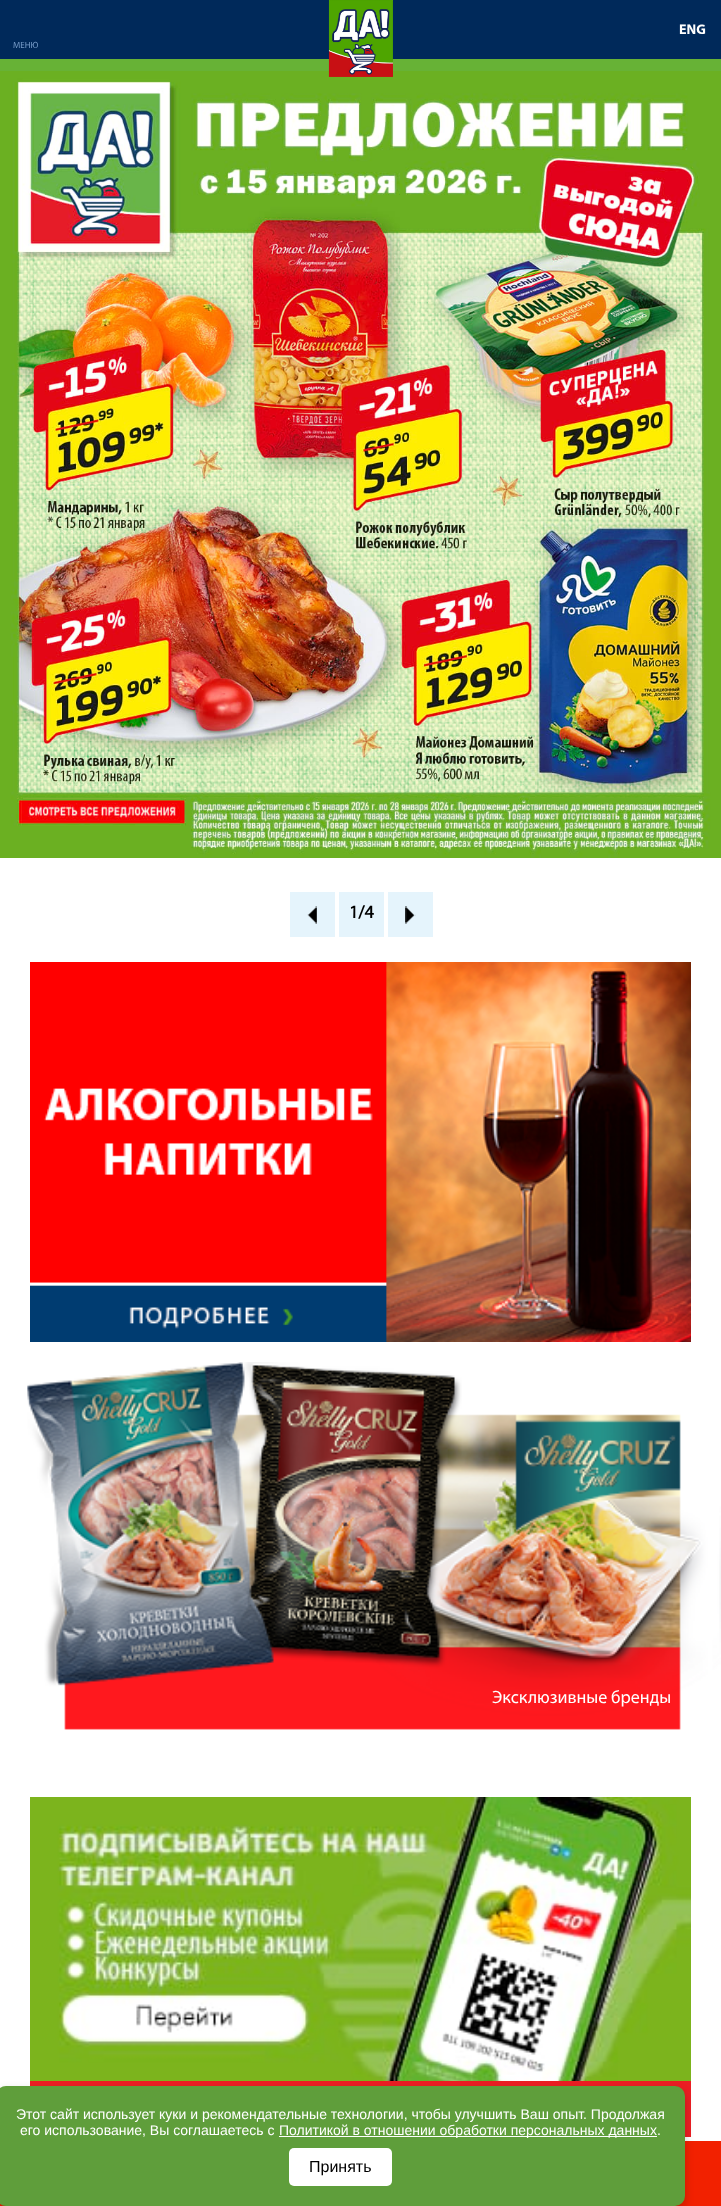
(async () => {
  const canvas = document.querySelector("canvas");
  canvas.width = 721;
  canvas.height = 2206;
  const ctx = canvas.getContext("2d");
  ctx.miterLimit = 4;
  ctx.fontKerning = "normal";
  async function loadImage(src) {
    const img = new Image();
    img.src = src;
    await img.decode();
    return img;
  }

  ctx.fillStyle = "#ffffff";
  ctx.fillRect(0, 0, 721, 2206);
  ctx.fillStyle = "#00295a";
  ctx.fillRect(0, 0, 721, 59);
  ctx.fillStyle = "#67b236";
  ctx.fillRect(0, 59, 721, 12);
  ctx.drawImage(await loadImage("img/2.png"), 0, 71, 721, 787);
  ctx.drawImage(await loadImage("img/1.png"), 328, 0, 65, 77);
  ctx.fillStyle = "#e5f4fc";
  ctx.fillRect(290, 892, 45, 45);
  ctx.drawImage(await loadImage("img/3.png"), 307, 906, 10, 18);
  ctx.fillRect(339, 892, 45, 45);
  ctx.fillRect(388, 892, 45, 45);
  ctx.drawImage(await loadImage("img/4.png"), 405, 906, 11, 18);
  ctx.drawImage(await loadImage("img/5.png"), 30, 962, 661, 380);
  ctx.drawImage(await loadImage("img/6.png"), 27, 1362, 694, 368);
  ctx.drawImage(await loadImage("img/7.png"), 30, 1797, 661, 284);
  ctx.fillStyle = "#eb1e23";
  ctx.fillRect(30, 2081, 661, 56);
  ctx.fillStyle = "#f22100";
  ctx.fillRect(0, 2141, 721, 65);
  ctx.fillStyle = "rgba(0, 0, 0, 0.2)";
  ctx.filter = "blur(4px)";
  ctx.beginPath();
  ctx.roundRect(-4, 2090, 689, 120, 10);
  ctx.fill();
  ctx.filter = "none";
  ctx.fillStyle = "#5f9e3b";
  ctx.beginPath();
  ctx.roundRect(-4, 2086, 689, 120, 10);
  ctx.fill();
  ctx.fillStyle = "#ffffff";
  ctx.fillRect(279, 2136, 378, 1);
  ctx.beginPath();
  ctx.roundRect(289, 2148, 103, 38, 5);
  ctx.fill();
  ctx.font = "bold 14px 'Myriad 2'";
  ctx.fillText("ENG", 679, 34);
  ctx.font = "9px Myriad";
  ctx.fillStyle = "#7399c6";
  ctx.fillText("МЕНЮ", 13, 48);
  ctx.font = "bold 18px Myriad";
  ctx.fillStyle = "#000000";
  ctx.fillText("1/4", 349, 918);
  ctx.font = "18px Myriad";
  ctx.fillStyle = "#ffffff";
  ctx.fillText("Эксклюзивные бренды", 492, 1703);
  ctx.font = "14px Liberation Sans";
  for (const [text, x, y] of [
    ["Этот сайт использует куки и рекомендательные технологии, чтобы улучшить Ваш опыт. Продолжая", 16, 2119],
    ["его использование, Вы соглашаетесь с", 20, 2135],
    ["Политикой в отношении обработки персональных данных.", 279, 2135],
  ]) {
    ctx.fillText(text, x, y);
  }
  ctx.font = "16px Liberation Sans";
  ctx.fillStyle = "#000000";
  ctx.fillText("Принять", 309, 2172);
})();
